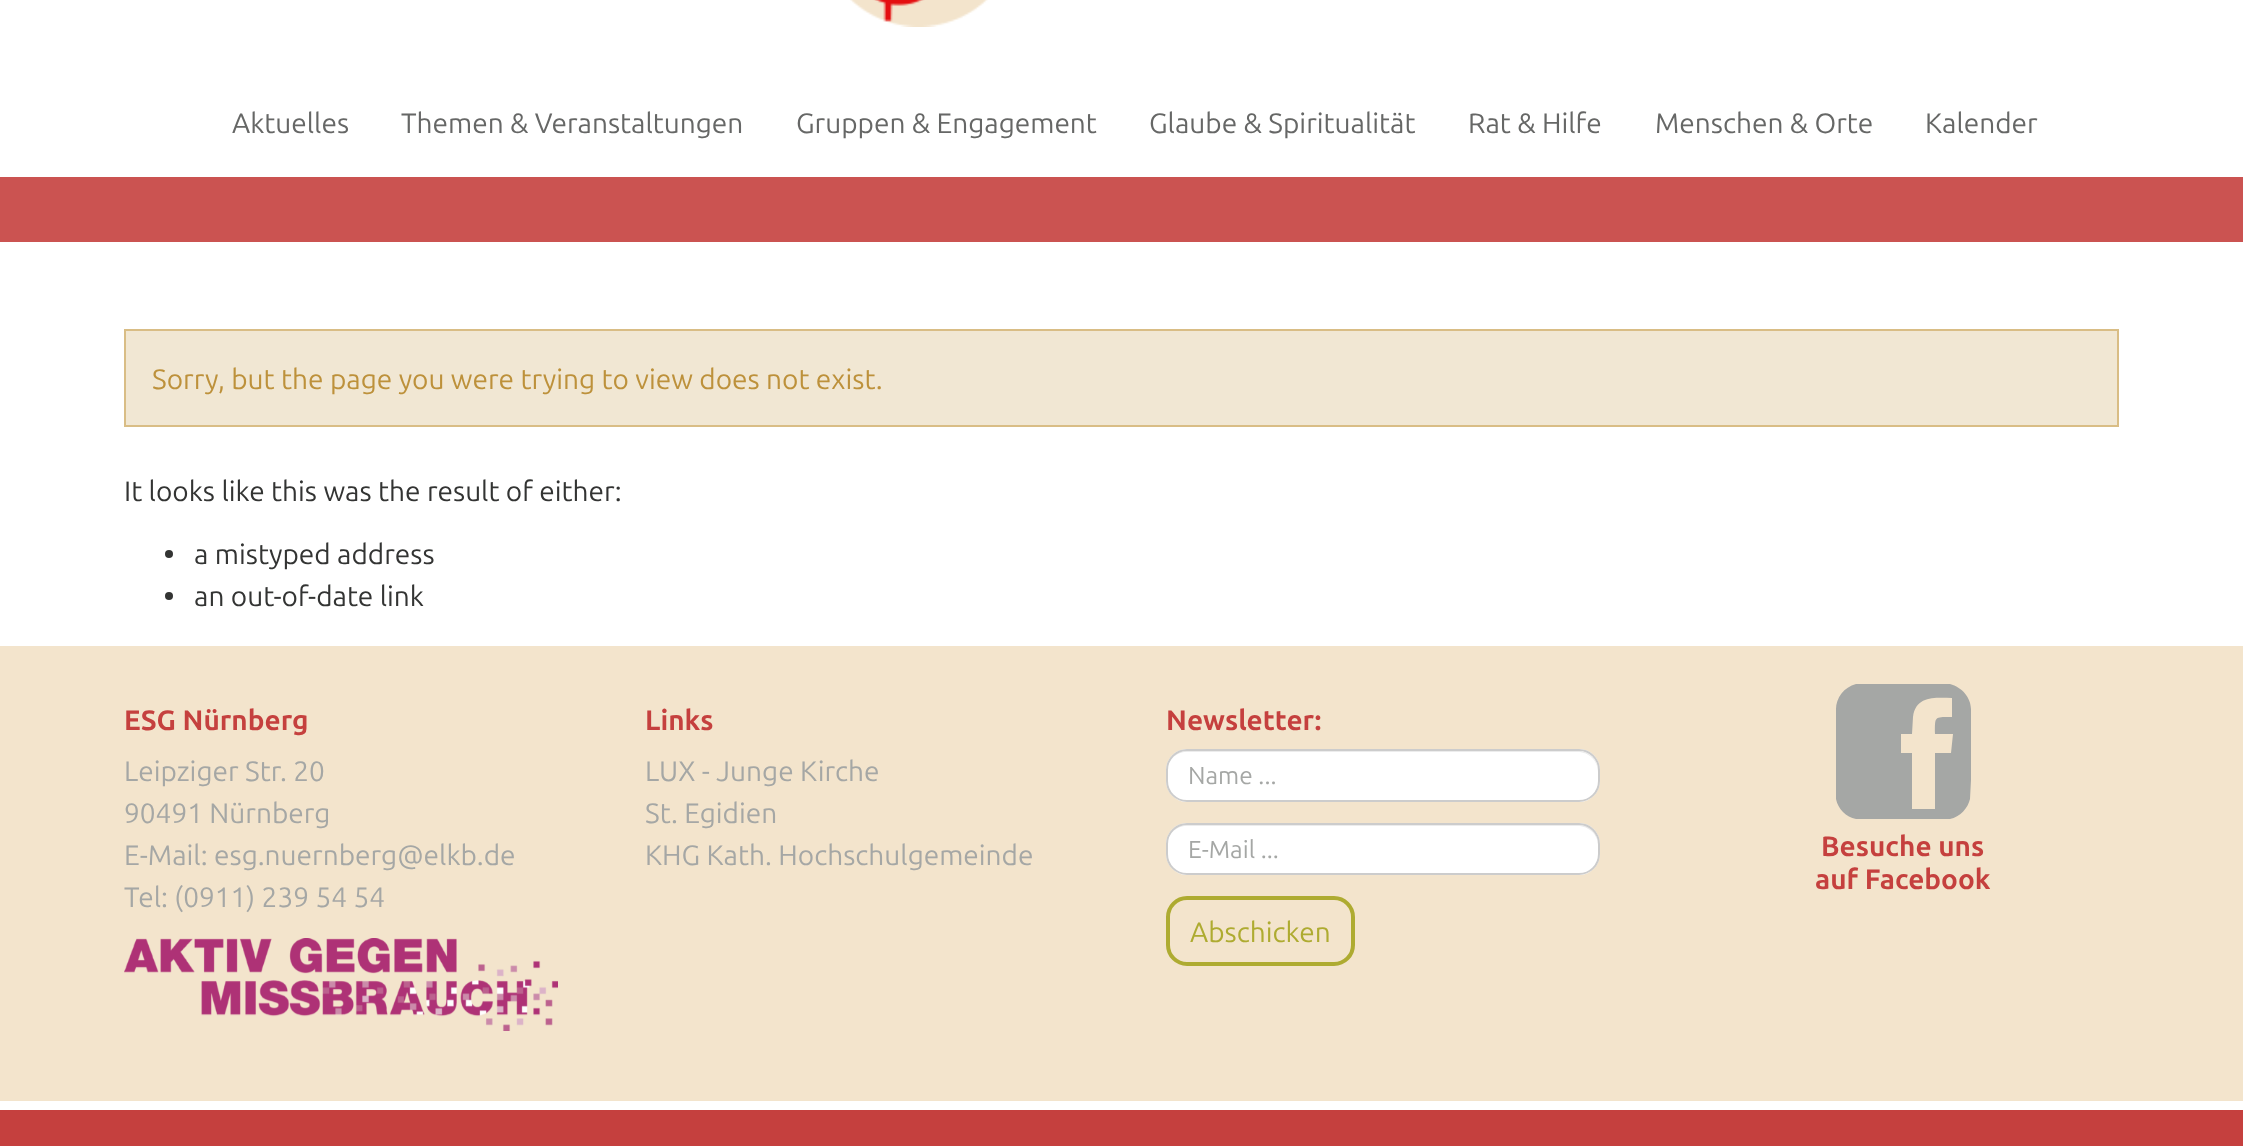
(async () => {
  const canvas = document.querySelector("canvas");
  canvas.width = 2243;
  canvas.height = 1146;
  const ctx = canvas.getContext("2d");
  ctx.miterLimit = 4;
  ctx.fontKerning = "normal";
  async function loadImage(src) {
    const img = new Image();
    img.src = src;
    await img.decode();
    return img;
  }
  let path;

  ctx.fillStyle = "#ffffff";
  ctx.fillRect(0, 0, 2243, 1146);
  ctx.drawImage(await loadImage("img/1.png"), 850, 0, 138, 27);
  ctx.fillStyle = "#cb5351";
  ctx.fillRect(0, 177, 2243, 65);
  ctx.fillStyle = "#f1e7d3";
  ctx.beginPath();
  ctx.rect(125, 330, 1993, 96);
  ctx.fill();
  ctx.strokeStyle = "#d9bd85";
  ctx.lineWidth = 2;
  ctx.stroke();
  ctx.fillStyle = "#333433";
  ctx.beginPath();
  ctx.arc(169, 554, 4, 0, Math.PI * 2);
  ctx.fill();
  ctx.beginPath();
  ctx.arc(169, 596, 4, 0, Math.PI * 2);
  ctx.fill();
  ctx.fillStyle = "#f3e4cc";
  ctx.fillRect(0, 646, 2243, 455);
  ctx.drawImage(await loadImage("img/2.png"), 124, 938, 434, 93);
  ctx.fillStyle = "#ffffff";
  ctx.beginPath();
  ctx.roundRect(1166, 749, 434, 53, 21);
  ctx.fill();
  ctx.fillStyle = "#ececec";
  path = new Path2D("M1186 752H1578C1589 752 1598 761 1598 772V770C1598 760 1589 751 1579 751H1186C1176 751 1167 760 1167 770V772C1167 761 1176 752 1186 752Z");
  ctx.fill(path);
  ctx.beginPath();
  ctx.roundRect(1167, 750, 432, 51, 20);
  ctx.strokeStyle = "#cccccc";
  ctx.stroke();
  ctx.fillStyle = "#ffffff";
  ctx.beginPath();
  ctx.roundRect(1166, 823, 434, 52, 21);
  ctx.fill();
  ctx.fillStyle = "#ececec";
  path = new Path2D("M1186 826H1578C1589 826 1598 835 1598 845V843C1598 833 1589 824 1579 824H1186C1176 824 1167 833 1167 843V845C1167 835 1176 826 1186 826Z");
  ctx.fill(path);
  ctx.beginPath();
  ctx.roundRect(1167, 824, 432, 50, 20);
  ctx.stroke();
  ctx.beginPath();
  ctx.roundRect(1168, 898, 185, 66, 19);
  ctx.strokeStyle = "#aeab31";
  ctx.lineWidth = 4;
  ctx.stroke();
  ctx.fillStyle = "#a5a7a5";
  path = new Path2D("M1951 753L1953 734H1935C1935 716 1934 717 1952 717V698C1936 698 1916 695 1913 717L1912 734H1901V753H1912V809H1935V753ZM1971 709V780L1970 799C1968 808 1960 817 1950 819H1931H1856C1846 817 1838 809 1836 799V780V709C1836 698 1844 687 1856 684H1875H1950C1962 687 1971 698 1971 709Z");
  ctx.fill(path);
  ctx.fillStyle = "#c5403e";
  ctx.fillRect(0, 1110, 2243, 36);
  ctx.font = "28px Ubuntu";
  ctx.fillStyle = "#666766";
  for (const [text, x, y] of [
    ["Aktuelles", 232, 133],
    ["Themen & Veranstaltungen", 401, 133],
    ["Gruppen & Engagement", 796, 133],
    ["Glaube & Spiritualität", 1149, 133],
    ["Rat & Hilfe", 1468, 133],
    ["Menschen & Orte", 1655, 133],
    ["Kalender", 1925, 133],
  ]) {
    ctx.fillText(text, x, y);
  }
  ctx.fillStyle = "#bd913b";
  ctx.fillText("Sorry, but the page you were trying to view does not exist.", 152, 389);
  ctx.fillStyle = "#333433";
  for (const [text, x, y] of [
    ["It looks like this was the result of either:", 124, 501],
    ["a mistyped address", 194, 564],
    ["an out-of-date link", 194, 606],
  ]) {
    ctx.fillText(text, x, y);
  }
  ctx.font = "bold 28px Ubuntu";
  ctx.fillStyle = "#c5403e";
  ctx.fillText("ESG Nürnberg", 124, 730);
  ctx.font = "28px Ubuntu";
  ctx.fillStyle = "#a5a7a5";
  for (const [text, x, y] of [
    ["Leipziger Str. 20", 124, 781],
    ["90491 Nürnberg", 124, 823],
    ["E-Mail: esg.nuernberg@elkb.de", 124, 865],
    ["Tel: (0911) 239 54 54", 124, 907],
  ]) {
    ctx.fillText(text, x, y);
  }
  ctx.font = "bold 28px Ubuntu";
  ctx.fillStyle = "#c5403e";
  ctx.fillText("Links", 645, 730);
  ctx.font = "28px Ubuntu";
  ctx.fillStyle = "#a5a7a5";
  for (const [text, x, y] of [
    ["LUX - Junge Kirche", 645, 781],
    ["St. Egidien", 645, 823],
    ["KHG Kath. Hochschulgemeinde", 645, 865],
  ]) {
    ctx.fillText(text, x, y);
  }
  ctx.font = "bold 28px Ubuntu";
  ctx.fillStyle = "#c5403e";
  ctx.fillText("Newsletter:", 1166, 730);
  ctx.font = "24.5px Ubuntu";
  ctx.fillStyle = "#a5a7a5";
  ctx.fillText("Name ...", 1188, 784);
  ctx.fillText("E-Mail ...", 1188, 858);
  ctx.font = "28px Ubuntu";
  ctx.fillStyle = "#aeab31";
  ctx.fillText("Abschicken", 1190, 942);
  ctx.font = "bold 28px Ubuntu";
  ctx.fillStyle = "#c5403e";
  ctx.fillText("Besuche uns", 1821, 856);
  ctx.fillText("auf Facebook", 1815, 889);
})();
